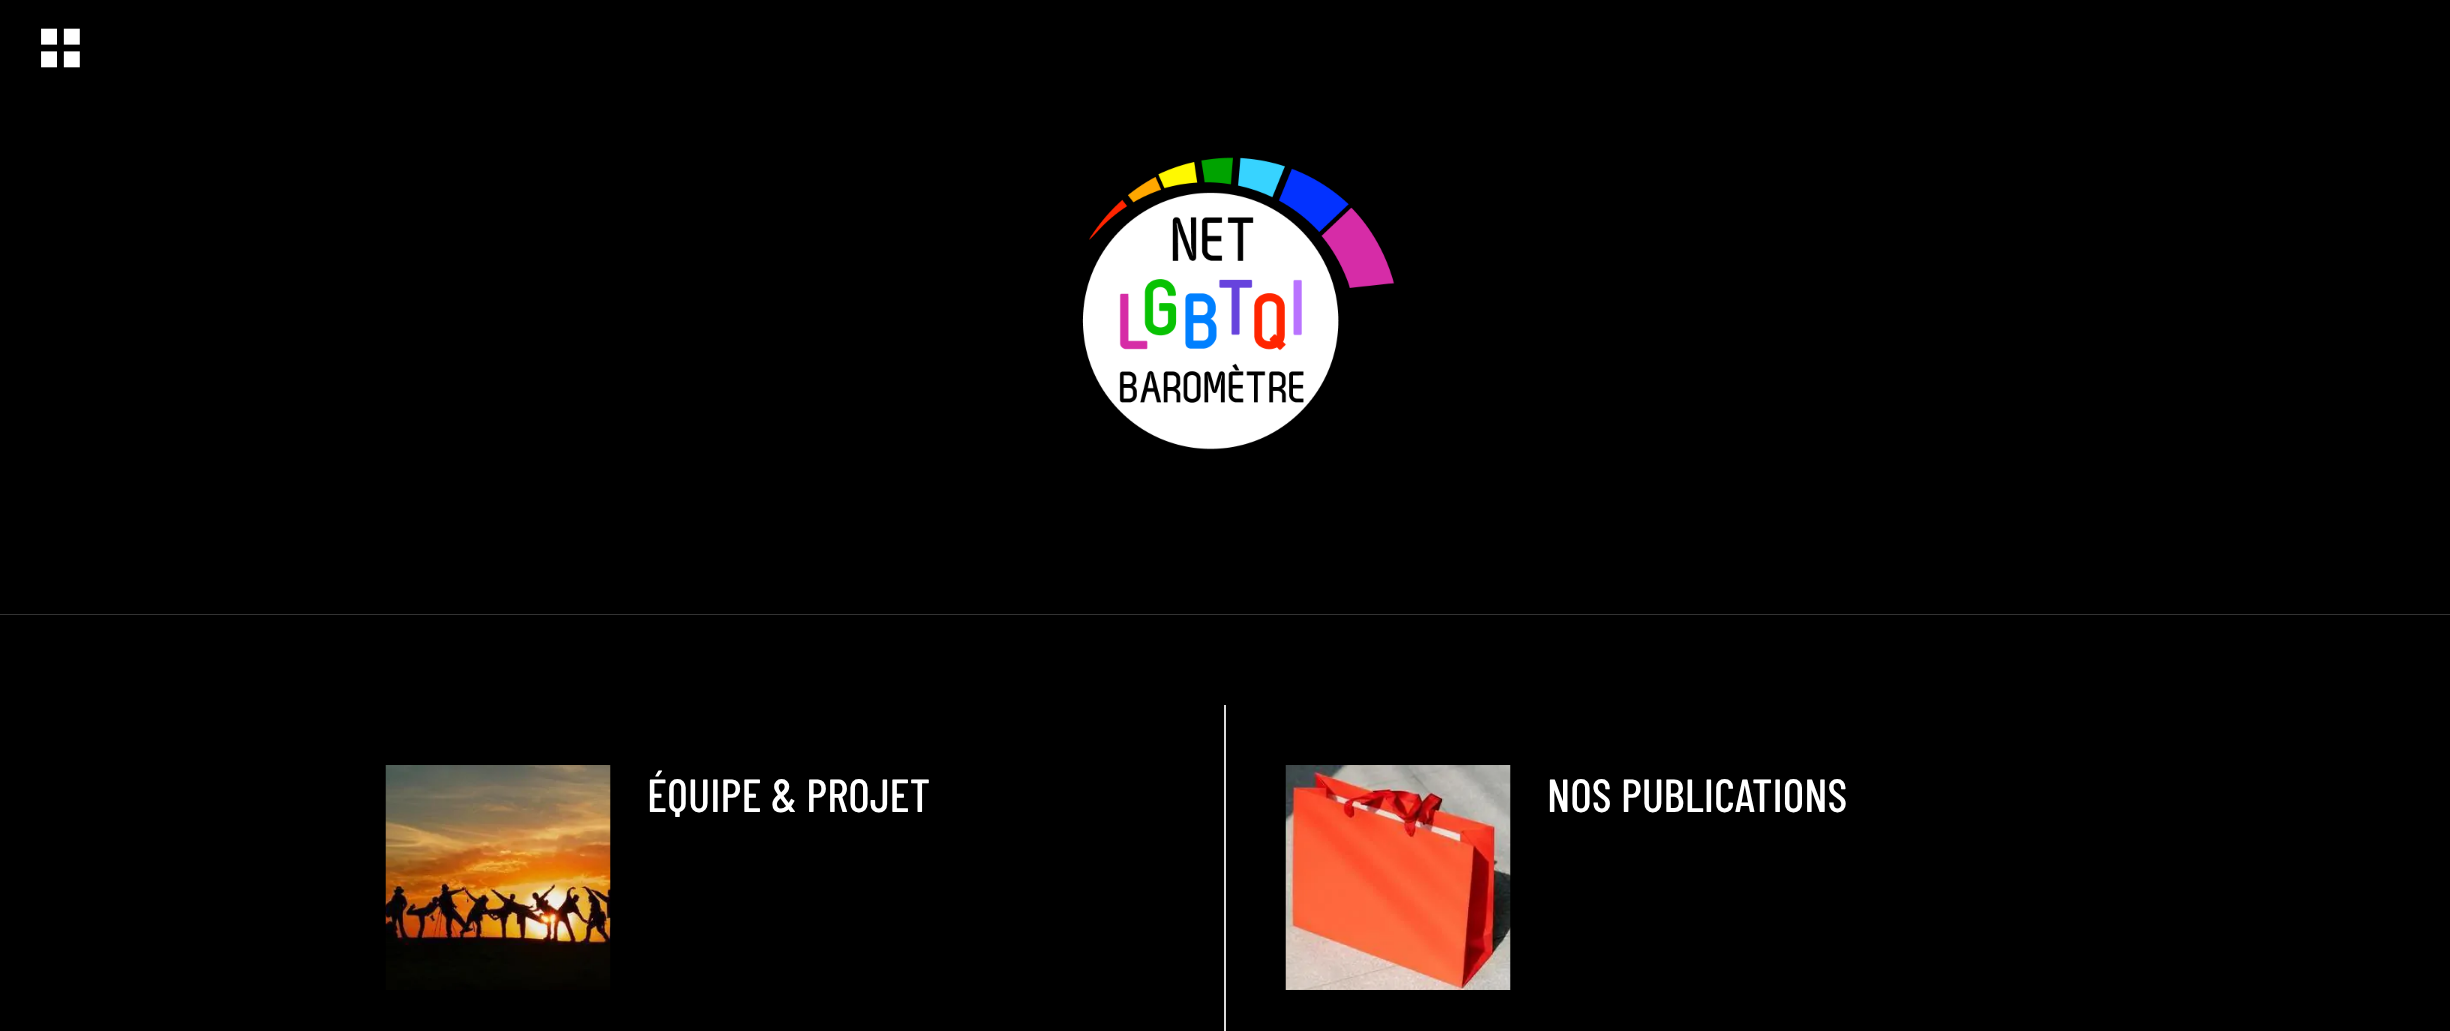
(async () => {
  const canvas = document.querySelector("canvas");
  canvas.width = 2450;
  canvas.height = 1031;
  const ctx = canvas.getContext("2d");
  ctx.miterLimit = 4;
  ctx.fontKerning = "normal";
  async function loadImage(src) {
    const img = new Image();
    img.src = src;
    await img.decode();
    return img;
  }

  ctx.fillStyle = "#000000";
  ctx.fillRect(0, 0, 2450, 1031);
  ctx.fillStyle = "#333333";
  ctx.fillRect(0, 614, 2450, 1);
  ctx.drawImage(await loadImage("img/1.png"), 41, 28, 39, 40);
  ctx.drawImage(await loadImage("img/2.png"), 1082, 157, 313, 293);
  ctx.fillStyle = "#dbdbdb";
  ctx.fillRect(1224, 705, 2, 326);
  ctx.drawImage(await loadImage("img/3.png"), 385, 765, 226, 225);
  ctx.drawImage(await loadImage("img/4.png"), 1285, 765, 226, 225);
  ctx.font = "500 46.5px Barlow Condensed";
  ctx.fillStyle = "#ffffff";
  ctx.fillText("ÉQUIPE & PROJET", 647, 812);
  ctx.fillText("NOS PUBLICATIONS", 1547, 812);
})();
